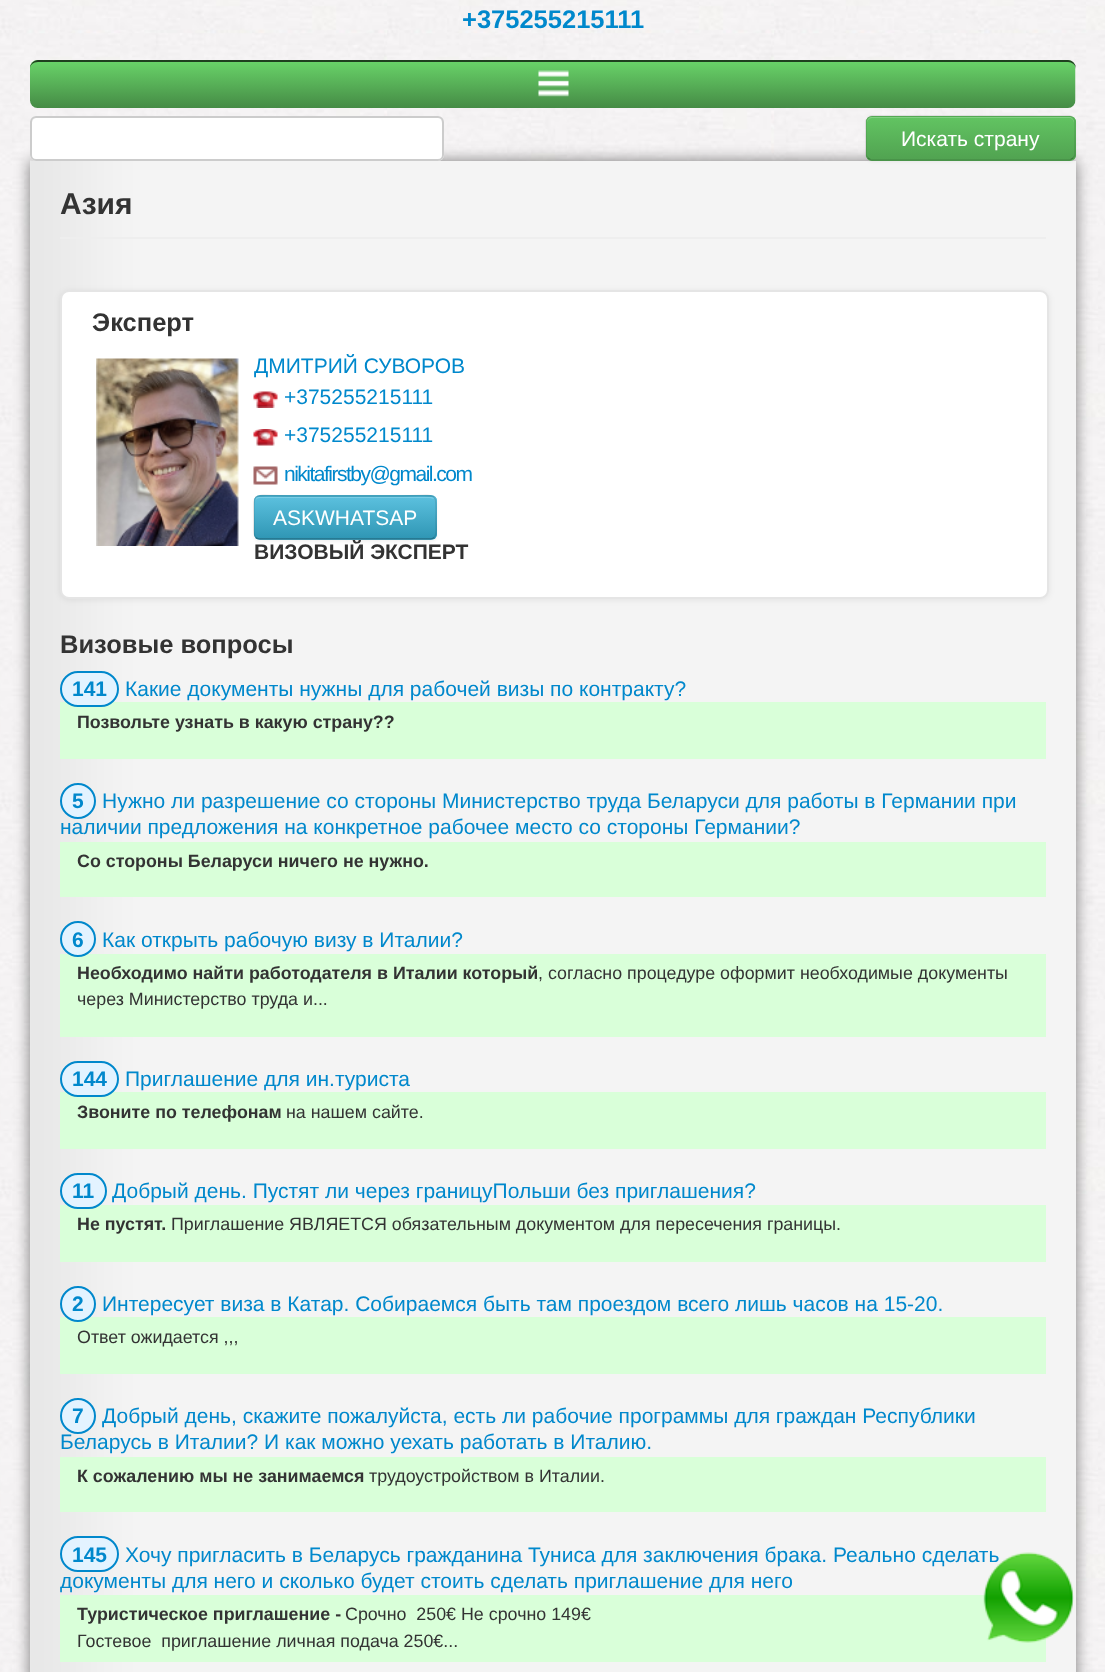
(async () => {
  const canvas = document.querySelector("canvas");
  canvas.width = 1105;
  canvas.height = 1672;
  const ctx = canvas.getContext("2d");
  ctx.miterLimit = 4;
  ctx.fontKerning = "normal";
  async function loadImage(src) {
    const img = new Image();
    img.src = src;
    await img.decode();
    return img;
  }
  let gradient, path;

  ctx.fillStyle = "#ffffff";
  ctx.fillRect(0, 0, 1105, 1672);
  ctx.drawImage(await loadImage("img/1.png"), 0, 0, 1105, 1672);
  ctx.drawImage(await loadImage("img/2.png"), 30, 60, 1046, 48);
  ctx.fillStyle = "rgba(0, 0, 0, 0.7)";
  path = new Path2D("M38 62H1068C1072 62 1076 65 1076 69V68C1076 64 1072 60 1068 60H38C34 60 30 64 30 68V69C30 65 33 62 38 62Z");
  ctx.fill(path);
  ctx.fillStyle = "rgba(0, 0, 0, 0.5)";
  ctx.filter = "blur(7.5px)";
  ctx.beginPath();
  ctx.rect(30, 161, 1046, 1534);
  ctx.fill();
  ctx.filter = "none";
  ctx.fillStyle = "#f4f4f4";
  ctx.fillRect(133, 161, 943, 1511);
  ctx.drawImage(await loadImage("img/3.png"), 30, 160, 104, 1512);
  ctx.fillStyle = "#ffffff";
  ctx.beginPath();
  ctx.roundRect(30, 116, 414, 45, 6);
  ctx.fill();
  ctx.fillStyle = "#ececec";
  path = new Path2D("M36 118H438C444 118 442 132 442 134V157C443 156 443 155 443 154V122C443 119 441 117 438 117H37C34 117 32 119 32 122V123C32 121 34 118 36 118Z");
  ctx.fill(path);
  ctx.beginPath();
  ctx.roundRect(31, 117, 412, 43, 5);
  ctx.strokeStyle = "#cccccc";
  ctx.lineWidth = 2;
  ctx.stroke();
  ctx.fillStyle = "rgba(0, 0, 0, 0.05)";
  ctx.filter = "blur(1.5px)";
  ctx.beginPath();
  ctx.roundRect(866, 117, 210, 45, 6);
  ctx.fill();
  ctx.filter = "none";
  ctx.fillStyle = "#5bb75b";
  ctx.beginPath();
  ctx.roundRect(866, 116, 210, 45, 6);
  ctx.fill();
  ctx.save();
  ctx.beginPath();
  ctx.roundRect(866, 116, 210, 45, 6);
  ctx.clip();
  gradient = ctx.createLinearGradient(971, 117, 971, 159);
  gradient.addColorStop(0, "#62c462");
  gradient.addColorStop(1, "#51a351");
  ctx.fillStyle = gradient;
  ctx.fillRect(866, 117, 210, 42);
  ctx.restore();
  ctx.fillStyle = "rgba(255, 255, 255, 0.2)";
  path = new Path2D("M872 118H1070C1072 118 1074 121 1074 123V122C1074 119 1072 117 1069 117H872C869 117 867 119 867 122V123C867 121 869 118 872 118Z");
  ctx.fill(path);
  path = new Path2D("M1073 158C1072 159 1071 160 1069.5 160H871.5C870 160 869 159 868 158");
  ctx.strokeStyle = "rgba(0, 0, 0, 0.25)";
  ctx.lineWidth = 1.5;
  ctx.stroke(path);
  path = new Path2D("M868 158C867 157 866 156 866 154.5V121.5C866 120 867 119 868 118C869 117 870 116 871.5 116H1069.5C1071 116 1072 117 1073 118C1074 119 1075 120 1075 121.5V154.5C1075 156 1074 157 1073 158");
  ctx.strokeStyle = "rgba(0, 0, 0, 0.1)";
  ctx.stroke(path);
  ctx.fillStyle = "#eeeeee";
  ctx.fillRect(60, 237, 986, 2);
  ctx.fillStyle = "rgba(0, 0, 0, 0.07)";
  ctx.filter = "blur(3px)";
  ctx.beginPath();
  ctx.roundRect(60, 291, 989, 309, 9);
  ctx.fill();
  ctx.filter = "none";
  ctx.fillStyle = "#ffffff";
  ctx.beginPath();
  ctx.roundRect(61, 291, 987, 307, 8);
  ctx.fill();
  ctx.strokeStyle = "#e5e5e5";
  ctx.lineWidth = 2;
  ctx.stroke();
  ctx.drawImage(await loadImage("img/4.png"), 96, 358, 143, 188);
  ctx.drawImage(await loadImage("img/5.png"), 253, 391, 25, 17);
  ctx.drawImage(await loadImage("img/6.png"), 253, 429, 25, 17);
  ctx.drawImage(await loadImage("img/7.png"), 253, 466, 25, 19);
  ctx.fillStyle = "rgba(0, 0, 0, 0.05)";
  ctx.filter = "blur(1.5px)";
  ctx.beginPath();
  ctx.roundRect(254, 497, 183, 45, 6);
  ctx.fill();
  ctx.filter = "none";
  ctx.fillStyle = "#49afcd";
  ctx.beginPath();
  ctx.roundRect(254, 495, 183, 45, 6);
  ctx.fill();
  ctx.save();
  ctx.beginPath();
  ctx.roundRect(254, 495, 183, 45, 6);
  ctx.clip();
  gradient = ctx.createLinearGradient(345, 497, 345, 539);
  gradient.addColorStop(0, "#5bc0de");
  gradient.addColorStop(1, "#2f96b4");
  ctx.fillStyle = gradient;
  ctx.fillRect(254, 497, 183, 42);
  ctx.restore();
  ctx.fillStyle = "#7bcde5";
  path = new Path2D("M260 498H430L434 499L435 502C435 499 433 497 430 497H260C257 497 255 499 255 502C255 500 257 498 260 498Z");
  ctx.fill(path);
  path = new Path2D("M434 537.5C433 538.5 432 539 430.5 539H259.5C258 539 257 538.5 256 537.5");
  ctx.strokeStyle = "rgba(0, 0, 0, 0.25)";
  ctx.lineWidth = 1.5;
  ctx.stroke(path);
  path = new Path2D("M256 537.5C252.5 534.5 254 526.5 254 523C254 488.5 249.5 496 288 496H402C440.5 496 436 488.5 436 523C436 526.5 437.5 534.5 434 537.5");
  ctx.strokeStyle = "rgba(0, 0, 0, 0.1)";
  ctx.stroke(path);
  ctx.fillStyle = "#d9ffd9";
  ctx.fillRect(60, 702, 986, 57);
  ctx.fillStyle = "#e3f3ff";
  ctx.beginPath();
  ctx.roundRect(61, 672, 57, 34, 17);
  ctx.fill();
  ctx.strokeStyle = "#0088cc";
  ctx.lineWidth = 2;
  ctx.stroke();
  ctx.beginPath();
  ctx.arc(78, 801, 17, 0, Math.PI * 2);
  ctx.fill();
  ctx.stroke();
  ctx.fillStyle = "#d9ffd9";
  ctx.fillRect(60, 842, 986, 55);
  ctx.fillRect(60, 954, 986, 83);
  ctx.fillStyle = "#e3f3ff";
  ctx.beginPath();
  ctx.arc(78, 939, 17, 0, Math.PI * 2);
  ctx.fill();
  ctx.stroke();
  ctx.fillStyle = "#d9ffd9";
  ctx.fillRect(60, 1092, 986, 57);
  ctx.fillStyle = "#e3f3ff";
  ctx.beginPath();
  ctx.roundRect(61, 1062, 57, 34, 17);
  ctx.fill();
  ctx.stroke();
  ctx.fillStyle = "#d9ffd9";
  ctx.fillRect(60, 1205, 986, 57);
  ctx.fillStyle = "#e3f3ff";
  ctx.beginPath();
  ctx.roundRect(61, 1174, 45, 34, 17);
  ctx.fill();
  ctx.stroke();
  ctx.fillStyle = "#d9ffd9";
  ctx.fillRect(60, 1317, 986, 57);
  ctx.fillStyle = "#e3f3ff";
  ctx.beginPath();
  ctx.arc(78, 1304, 17, 0, Math.PI * 2);
  ctx.fill();
  ctx.stroke();
  ctx.beginPath();
  ctx.arc(78, 1416, 17, 0, Math.PI * 2);
  ctx.fill();
  ctx.stroke();
  ctx.fillStyle = "#d9ffd9";
  ctx.fillRect(60, 1457, 986, 55);
  ctx.fillStyle = "#e3f3ff";
  ctx.beginPath();
  ctx.roundRect(61, 1537, 57, 34, 17);
  ctx.fill();
  ctx.stroke();
  ctx.fillStyle = "#d9ffd9";
  ctx.fillRect(60, 1595, 986, 67);
  ctx.font = "bold 25.5px Liberation Sans";
  ctx.fillStyle = "#0088cc";
  ctx.fillText("+375255215111", 462, 28);
  ctx.font = "21px Liberation Sans";
  ctx.fillStyle = "#ffffff";
  ctx.fillText("Искать страну", 901, 146);
  ctx.font = "bold 30px Liberation Sans";
  ctx.fillStyle = "#333333";
  ctx.fillText("Азия", 60, 214);
  ctx.font = "bold 25.5px Liberation Sans";
  ctx.fillText("Эксперт", 92, 331);
  ctx.font = "21px Liberation Sans";
  ctx.fillStyle = "#0088cc";
  for (const [text, x, y] of [
    ["ДМИТРИЙ СУВОРОВ", 254, 373],
    ["+375255215111", 284, 404],
    ["+375255215111", 284, 442],
  ]) {
    ctx.fillText(text, x, y);
  }
  ctx.letterSpacing = "-1.5px";
  ctx.fillText("nikitafirstby@gmail.com", 284, 481);
  ctx.letterSpacing = "0px";
  ctx.fillStyle = "#ffffff";
  ctx.fillText("ASKWHATSAP", 273, 525);
  ctx.font = "bold 21px Liberation Sans";
  ctx.fillStyle = "#333333";
  ctx.fillText("ВИЗОВЫЙ ЭКСПЕРТ", 254, 559);
  ctx.font = "bold 25.5px Liberation Sans";
  ctx.fillText("Визовые вопросы", 60, 653);
  ctx.font = "bold 21px Liberation Sans";
  ctx.fillStyle = "#0088cc";
  ctx.fillText("141", 72, 696);
  ctx.font = "21px Liberation Sans";
  ctx.fillText("Какие документы нужны для рабочей визы по контракту?", 125, 696);
  ctx.font = "bold 17.85px Liberation Sans";
  ctx.fillStyle = "#333333";
  ctx.fillText("Позвольте узнать в какую страну??", 77, 728);
  ctx.font = "bold 21px Liberation Sans";
  ctx.fillStyle = "#0088cc";
  ctx.fillText("5", 72, 808);
  ctx.font = "21px Liberation Sans";
  ctx.fillText("Нужно ли разрешение со стороны Министерство труда Беларуси для работы в Германии при", 102, 808);
  ctx.fillText("наличии предложения на конкретное рабочее место со стороны Германии?", 60, 834);
  ctx.font = "bold 17.85px Liberation Sans";
  ctx.fillStyle = "#333333";
  ctx.fillText("Со стороны Беларуси ничего не нужно.", 77, 867);
  ctx.font = "bold 21px Liberation Sans";
  ctx.fillStyle = "#0088cc";
  ctx.fillText("6", 72, 947);
  ctx.font = "21px Liberation Sans";
  ctx.fillText("Как открыть рабочую визу в Италии?", 102, 947);
  ctx.font = "bold 17.85px Liberation Sans";
  ctx.fillStyle = "#333333";
  ctx.fillText("Необходимо найти работодателя в Италии который", 77, 979);
  ctx.font = "17.85px Liberation Sans";
  ctx.fillText(", согласно процедуре оформит необходимые документы", 538, 979);
  ctx.fillText("через Министерство труда и...", 77, 1005);
  ctx.font = "bold 21px Liberation Sans";
  ctx.fillStyle = "#0088cc";
  ctx.fillText("144", 72, 1086);
  ctx.font = "21px Liberation Sans";
  ctx.fillText("Приглашение для ин.туриста", 125, 1086);
  ctx.font = "bold 17.85px Liberation Sans";
  ctx.fillStyle = "#333333";
  ctx.fillText("Звоните по телефонам", 77, 1118);
  ctx.font = "17.85px Liberation Sans";
  ctx.fillText("на нашем сайте.", 286, 1118);
  ctx.font = "bold 21px Liberation Sans";
  ctx.fillStyle = "#0088cc";
  ctx.fillText("11", 72, 1198);
  ctx.font = "21px Liberation Sans";
  ctx.fillText("Добрый день. Пустят ли через границуПольши без приглашения?", 112, 1198);
  ctx.font = "bold 17.85px Liberation Sans";
  ctx.fillStyle = "#333333";
  ctx.fillText("Не пустят.", 77, 1230);
  ctx.font = "17.85px Liberation Sans";
  ctx.fillText("Приглашение ЯВЛЯЕТСЯ обязательным документом для пересечения границы.", 171, 1230);
  ctx.font = "bold 21px Liberation Sans";
  ctx.fillStyle = "#0088cc";
  ctx.fillText("2", 72, 1311);
  ctx.font = "21px Liberation Sans";
  ctx.fillText("Интересует виза в Катар. Собираемся быть там проездом всего лишь часов на 15-20.", 102, 1311);
  ctx.font = "17.85px Liberation Sans";
  ctx.fillStyle = "#333333";
  ctx.fillText("Ответ ожидается ,,,", 77, 1343);
  ctx.font = "bold 21px Liberation Sans";
  ctx.fillStyle = "#0088cc";
  ctx.fillText("7", 72, 1423);
  ctx.font = "21px Liberation Sans";
  ctx.fillText("Добрый день, скажите пожалуйста, есть ли рабочие программы для граждан Республики", 102, 1423);
  ctx.fillText("Беларусь в Италии? И как можно уехать работать в Италию.", 60, 1449);
  ctx.font = "bold 17.85px Liberation Sans";
  ctx.fillStyle = "#333333";
  ctx.fillText("К сожалению мы не занимаемся", 77, 1482);
  ctx.font = "17.85px Liberation Sans";
  ctx.fillText("трудоустройством в Италии.", 369, 1482);
  ctx.font = "bold 21px Liberation Sans";
  ctx.fillStyle = "#0088cc";
  ctx.fillText("145", 72, 1562);
  ctx.font = "21px Liberation Sans";
  ctx.fillText("Хочу пригласить в Беларусь гражданина Туниса для заключения брака. Реально сделать", 125, 1562);
  ctx.fillText("документы для него и сколько будет стоить сделать приглашение для него", 60, 1588);
  ctx.font = "bold 17.85px Liberation Sans";
  ctx.fillStyle = "#333333";
  ctx.fillText("Туристическое приглашение -", 77, 1620);
  ctx.font = "17.85px Liberation Sans";
  ctx.fillText("Срочно  250€ Не срочно 149€", 345, 1620);
  ctx.fillText("Гостевое  приглашение личная подача 250€...", 77, 1647);
  ctx.drawImage(await loadImage("img/8.png"), 983, 1552, 91, 91);
})();
